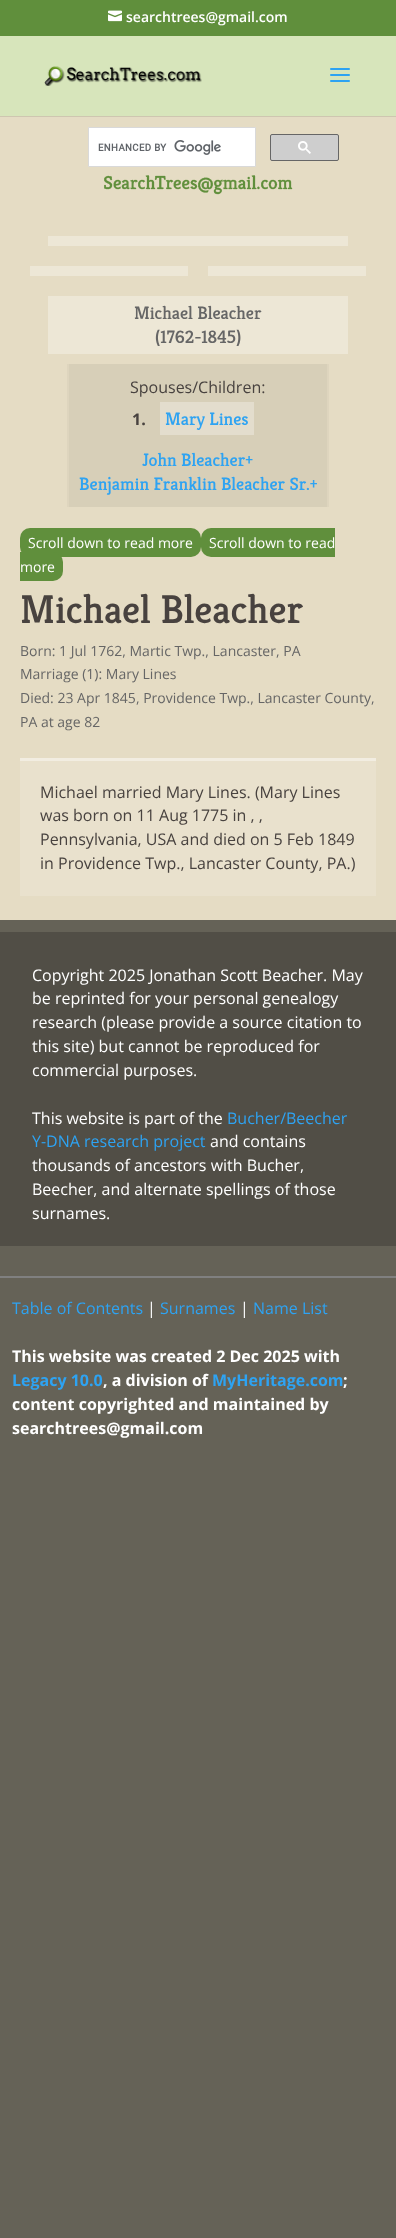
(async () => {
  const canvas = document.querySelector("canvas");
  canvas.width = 396;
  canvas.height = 2238;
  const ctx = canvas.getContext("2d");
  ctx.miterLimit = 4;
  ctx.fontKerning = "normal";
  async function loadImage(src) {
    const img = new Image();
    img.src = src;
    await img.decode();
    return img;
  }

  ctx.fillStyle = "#656257";
  ctx.fillRect(0, 0, 396, 2238);
  ctx.fillStyle = "#608f3c";
  ctx.fillRect(0, 0, 396, 36);
  ctx.drawImage(await loadImage("img/1.png"), 108, 10, 14, 12);
  ctx.fillStyle = "#cec6b0";
  ctx.fillRect(0, 116, 396, 1);
  ctx.fillStyle = "#d7e5bb";
  ctx.fillRect(0, 36, 396, 80);
  ctx.drawImage(await loadImage("img/2.png"), 44, 66, 158, 20);
  ctx.drawImage(await loadImage("img/3.png"), 330, 68, 20, 14);
  ctx.fillStyle = "#e5dcc4";
  ctx.fillRect(0, 117, 396, 803);
  ctx.fillStyle = "#ffffff";
  ctx.beginPath();
  ctx.rect(88.5, 127.5, 167, 39);
  ctx.fill();
  ctx.strokeStyle = "#d9d9d9";
  ctx.stroke();
  ctx.drawImage(await loadImage("img/4.png"), 98, 140, 123, 15);
  ctx.fillStyle = "#cecece";
  ctx.beginPath();
  ctx.roundRect(270.5, 134.5, 68, 26, 1.5);
  ctx.fill();
  ctx.strokeStyle = "#666666";
  ctx.stroke();
  ctx.drawImage(await loadImage("img/5.png"), 298, 141, 13, 13);
  ctx.drawImage(await loadImage("img/6.png"), 104, 175, 189, 20);
  for (const [x, y, w, h, color] of [
    [48, 236, 300, 10, "#ede7d6"],
    [30, 266, 158, 10, "#ede7d6"],
    [208, 266, 158, 10, "#ede7d6"],
    [48, 296, 300, 58, "#ede7d6"],
    [67, 364, 262, 143, "#ded5be"],
    [69, 364, 258, 143, "#d7cfb8"],
    [160, 402, 94, 33, "#e3ddcd"],
  ]) {
    ctx.fillStyle = color;
    ctx.fillRect(x, y, w, h);
  }
  ctx.fillStyle = "#608f3c";
  ctx.beginPath();
  ctx.roundRect(20, 528, 181, 29, 10);
  ctx.fill();
  ctx.beginPath();
  ctx.roundRect(201, 528, 134, 29, [10, 0, 0, 10]);
  ctx.fill();
  ctx.beginPath();
  ctx.roundRect(20, 552, 43, 29, [0, 10, 10, 0]);
  ctx.fill();
  for (const [x, y, w, h, color] of [
    [20, 761, 356, 135, "#e9e1cd"],
    [20, 758, 356, 3, "#f2ede1"],
    [0, 932, 396, 314, "#514e46"],
    [0, 1276, 396, 2, "#808080"],
  ]) {
    ctx.fillStyle = color;
    ctx.fillRect(x, y, w, h);
  }
  ctx.font = "600 14px Open Sans";
  ctx.fillStyle = "#ffffff";
  ctx.fillText("searchtrees@gmail.com", 126, 22);
  ctx.font = "500 18px Kreon";
  ctx.fillStyle = "#666666";
  ctx.fillText("Michael Bleacher", 134, 319);
  ctx.fillText("(1762-1845)", 155, 343);
  ctx.font = "16px Open Sans";
  ctx.fillStyle = "#48423f";
  ctx.fillText("Spouses/Children:", 130, 393);
  ctx.font = "bold 16px Open Sans";
  ctx.fillText("1.", 132, 425);
  ctx.font = "500 18px Kreon";
  ctx.fillStyle = "#2ea3f2";
  for (const [text, x, y] of [
    ["Mary Lines", 165, 425],
    ["John Bleacher+", 142, 466],
    ["Benjamin Franklin Bleacher Sr.+", 79, 490],
  ]) {
    ctx.fillText(text, x, y);
  }
  ctx.font = "14px Open Sans";
  ctx.fillStyle = "#ffffff";
  for (const [text, x, y] of [
    ["Scroll down to read more", 28, 548],
    ["Scroll down to read", 209, 548],
    ["more", 20, 572],
  ]) {
    ctx.fillText(text, x, y);
  }
  ctx.font = "500 40px Kreon";
  ctx.fillStyle = "#48423f";
  ctx.fillText("Michael Bleacher", 20, 623);
  ctx.font = "14px Open Sans";
  ctx.fillStyle = "#666666";
  for (const [text, x, y] of [
    ["Born: 1 Jul 1762, Martic Twp., Lancaster, PA", 20, 656],
    ["Marriage (1): Mary Lines", 20, 679],
    ["Died: 23 Apr 1845, Providence Twp., Lancaster County,", 20, 703],
    ["PA at age 82", 20, 727],
  ]) {
    ctx.fillText(text, x, y);
  }
  ctx.font = "16px Open Sans";
  ctx.fillStyle = "#48423f";
  for (const [text, x, y] of [
    ["Michael married Mary Lines. (Mary Lines", 40, 798],
    ["was born on 11 Aug 1775 in , ,", 40, 821],
    ["Pennsylvania, USA and died on 5 Feb 1849", 40, 845],
    ["in Providence Twp., Lancaster County, PA.)", 40, 869],
  ]) {
    ctx.fillText(text, x, y);
  }
  ctx.fillStyle = "#ffffff";
  for (const [text, x, y] of [
    ["Copyright 2025 Jonathan Scott Beacher. May", 32, 981],
    ["be reprinted for your personal genealogy", 32, 1004],
    ["research (please provide a source citation to", 32, 1028],
    ["this site) but cannot be reproduced for", 32, 1052],
    ["commercial purposes.", 32, 1076],
    ["This website is part of the", 32, 1124],
  ]) {
    ctx.fillText(text, x, y);
  }
  ctx.fillStyle = "#2ea3f2";
  ctx.fillText("Bucher/Beecher", 227, 1124);
  ctx.fillText("Y-DNA research project", 32, 1147);
  ctx.fillStyle = "#ffffff";
  for (const [text, x, y] of [
    ["and contains", 210, 1147],
    ["thousands of ancestors with Bucher,", 32, 1171],
    ["Beecher, and alternate spellings of those", 32, 1195],
    ["surnames.", 32, 1219],
  ]) {
    ctx.fillText(text, x, y);
  }
  ctx.fillStyle = "#2ea3f2";
  ctx.fillText("Table of Contents", 12, 1314);
  ctx.fillStyle = "#ffffff";
  ctx.fillText("|", 147, 1314);
  ctx.fillStyle = "#2ea3f2";
  ctx.fillText("Surnames", 160, 1314);
  ctx.fillStyle = "#ffffff";
  ctx.fillText("|", 240, 1314);
  ctx.fillStyle = "#2ea3f2";
  ctx.fillText("Name List", 253, 1314);
  ctx.font = "bold 16px Open Sans";
  ctx.fillStyle = "#ffffff";
  ctx.fillText("This website was created 2 Dec 2025 with", 12, 1362);
  ctx.fillStyle = "#2ea3f2";
  ctx.fillText("Legacy 10.0", 12, 1386);
  ctx.fillStyle = "#ffffff";
  ctx.fillText(", a division of", 103, 1386);
  ctx.fillStyle = "#2ea3f2";
  ctx.fillText("MyHeritage.com", 212, 1386);
  ctx.fillStyle = "#ffffff";
  for (const [text, x, y] of [
    [";", 343, 1386],
    ["content copyrighted and maintained by", 12, 1410],
    ["searchtrees@gmail.com", 12, 1434],
  ]) {
    ctx.fillText(text, x, y);
  }
})();
